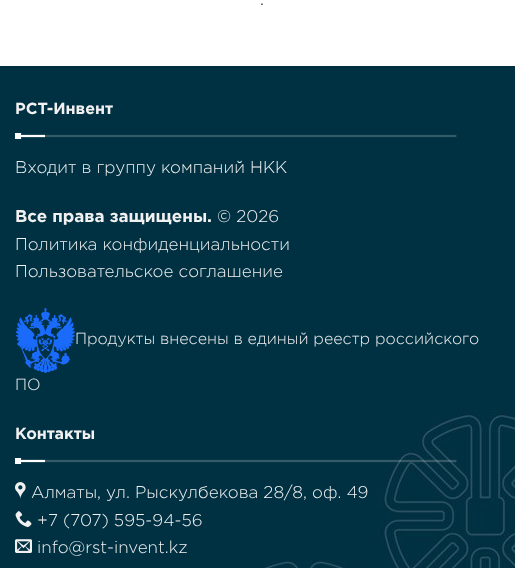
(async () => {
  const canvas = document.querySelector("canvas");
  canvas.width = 515;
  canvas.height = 568;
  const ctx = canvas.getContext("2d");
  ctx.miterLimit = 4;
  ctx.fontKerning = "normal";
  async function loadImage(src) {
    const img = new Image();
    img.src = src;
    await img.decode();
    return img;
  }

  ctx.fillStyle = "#ffffff";
  ctx.fillRect(0, 0, 515, 568);
  ctx.fillStyle = "#003142";
  ctx.fillRect(0, 67, 515, 501);
  ctx.drawImage(await loadImage("img/1.png"), 264, 410, 251, 158);
  ctx.fillStyle = "#002f3f";
  ctx.fillRect(0, 66, 515, 1);
  ctx.drawImage(await loadImage("img/2.png"), 15, 133, 442, 6);
  ctx.drawImage(await loadImage("img/3.png"), 15, 308, 60, 65);
  ctx.drawImage(await loadImage("img/4.png"), 15, 458, 442, 6);
  ctx.drawImage(await loadImage("img/5.png"), 15, 482, 11, 17);
  ctx.drawImage(await loadImage("img/6.png"), 15, 511, 17, 16);
  ctx.drawImage(await loadImage("img/7.png"), 15, 539, 17, 14);
  ctx.font = "300 17px Gotham";
  ctx.fillStyle = "#000000";
  ctx.fillText(".", 260, 5);
  ctx.font = "bold 16px Gotham";
  ctx.fillStyle = "#f1f1f1";
  ctx.fillText("РСТ-Инвент", 15, 114);
  ctx.font = "300 17px Gotham";
  ctx.fillText("Входит в группу компаний НКК", 15, 173);
  ctx.font = "bold 17px Gotham";
  ctx.fillText("Все права защищены.", 15, 222);
  ctx.font = "300 17px Gotham";
  for (const [text, x, y] of [
    ["© 2026", 217, 222],
    ["Политика конфиденциальности", 15, 250],
    ["Пользовательское соглашение", 15, 277],
  ]) {
    ctx.fillText(text, x, y);
  }
  ctx.font = "300 16px Gotham";
  ctx.fillText("Продукты внесены в единый реестр российского", 75, 344);
  ctx.fillText("ПО", 15, 390);
  ctx.font = "bold 16px Gotham";
  ctx.fillText("Контакты", 15, 439);
  ctx.font = "300 17px Gotham";
  for (const [text, x, y] of [
    ["Алматы, ул. Рыскулбекова 28/8, оф. 49", 31, 498],
    ["+7 (707) 595-94-56", 37, 526],
    ["info@rst-invent.kz", 37, 553],
  ]) {
    ctx.fillText(text, x, y);
  }
})();
